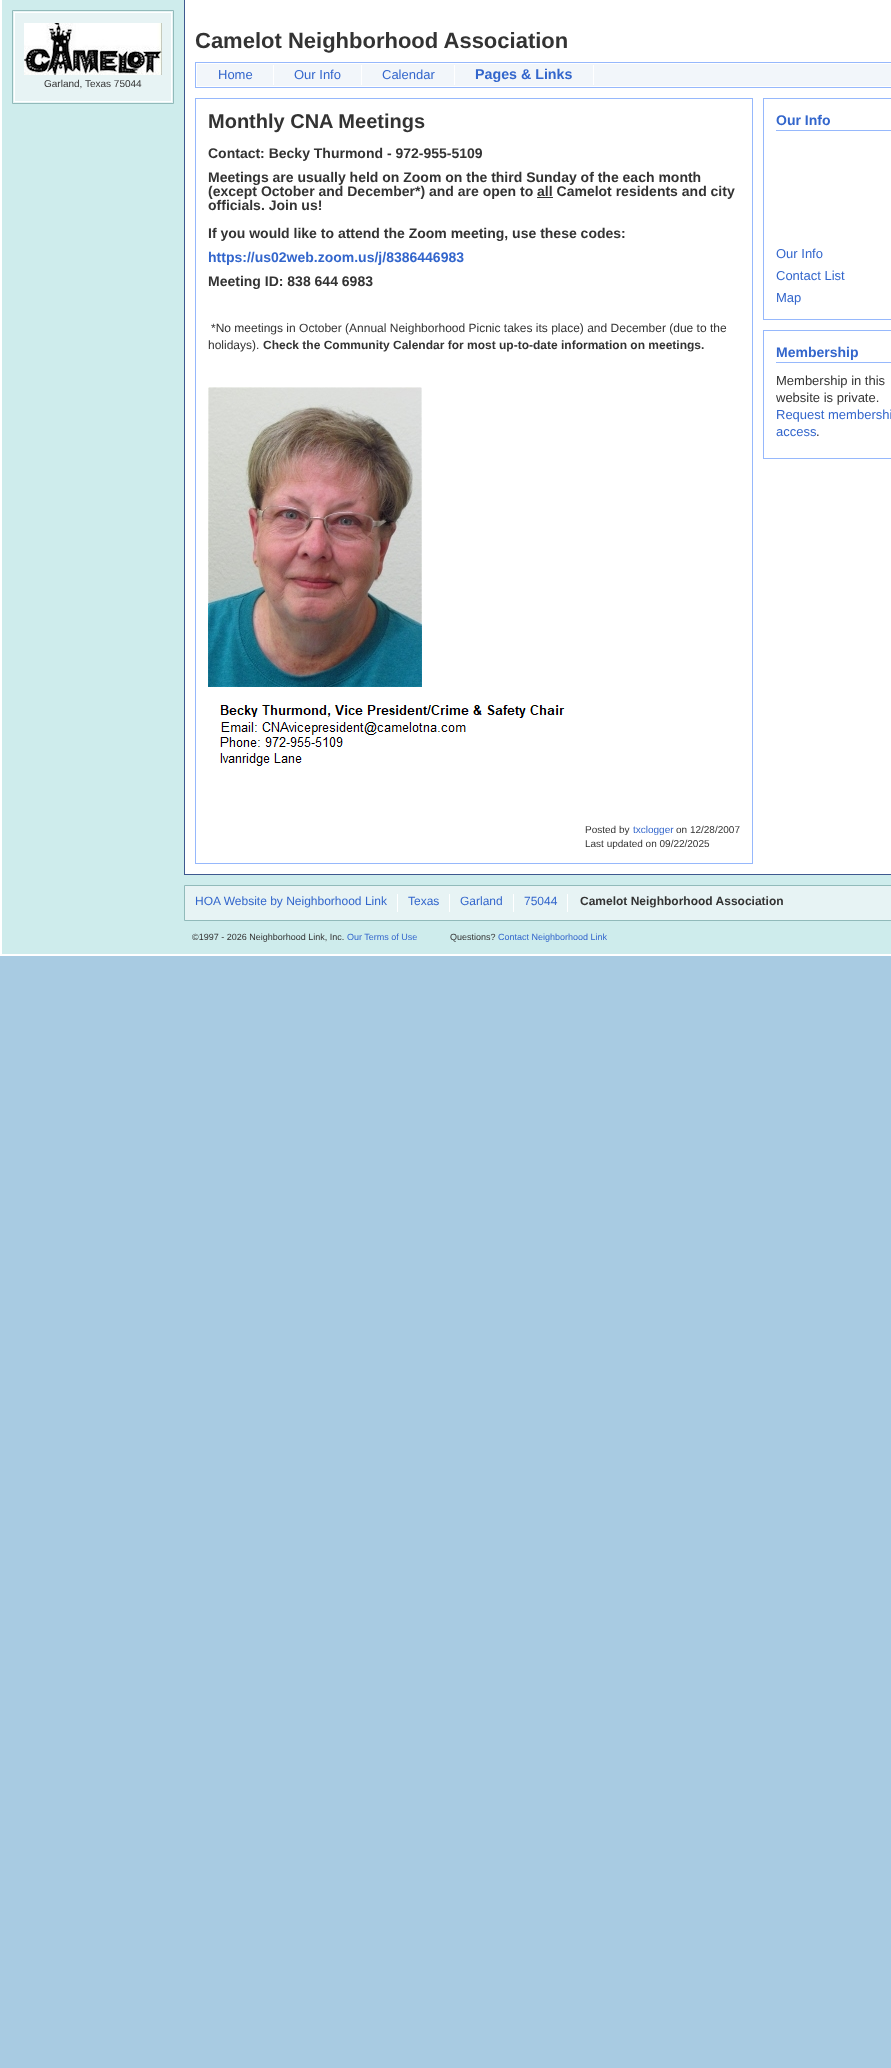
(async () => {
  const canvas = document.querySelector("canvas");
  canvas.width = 891;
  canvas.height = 2068;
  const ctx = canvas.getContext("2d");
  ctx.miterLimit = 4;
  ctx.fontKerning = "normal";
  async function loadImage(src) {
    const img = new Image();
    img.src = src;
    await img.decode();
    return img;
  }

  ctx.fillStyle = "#a8cbe2";
  ctx.fillRect(0, 0, 891, 2068);
  for (const [x, y, w, h, color] of [
    [2, 0, 889, 954, "#ceecec"],
    [0, 954, 891, 2, "#ffffff"],
    [0, 0, 2, 956, "#ffffff"],
    [185, 0, 706, 874, "#ffffff"],
    [184, 0, 1, 20, "#3e598f"],
  ]) {
    ctx.fillStyle = color;
    ctx.fillRect(x, y, w, h);
  }
  ctx.fillStyle = "#e7f3f4";
  ctx.beginPath();
  ctx.rect(12.5, 10.5, 161, 93);
  ctx.fill();
  ctx.strokeStyle = "#91baba";
  ctx.stroke();
  ctx.strokeStyle = "#ffffff";
  ctx.strokeRect(14.5, 12.5, 157, 89);
  ctx.drawImage(await loadImage("img/1.png"), 24, 23, 138, 52);
  ctx.fillStyle = "#3e598f";
  ctx.fillRect(184, 874, 707, 1);
  ctx.fillRect(184, 20, 1, 855);
  ctx.strokeStyle = "#96b8fc";
  ctx.strokeRect(195.5, 62.5, 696, 25);
  for (const [x, y, w, h, color] of [
    [197, 64, 694, 22, "#f2f6fa"],
    [273, 65, 1, 20, "#ffffff"],
    [361, 65, 1, 20, "#ffffff"],
    [454, 65, 1, 20, "#ffffff"],
    [593, 65, 1, 20, "#ffffff"],
  ]) {
    ctx.fillStyle = color;
    ctx.fillRect(x, y, w, h);
  }
  ctx.strokeRect(195.5, 98.5, 557, 765);
  ctx.fillStyle = "#333333";
  ctx.fillRect(537, 197, 16, 1);
  ctx.drawImage(await loadImage("img/2.png"), 208, 387, 214, 300);
  ctx.drawImage(await loadImage("img/3.png"), 220, 705, 345, 61);
  ctx.strokeRect(763.5, 98.5, 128, 221);
  ctx.fillStyle = "#96b8fc";
  ctx.fillRect(776, 130, 115, 1);
  ctx.strokeRect(763.5, 330.5, 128, 128);
  ctx.fillRect(776, 362, 115, 1);
  ctx.fillStyle = "#e7f3f4";
  ctx.beginPath();
  ctx.rect(184.5, 885.5, 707, 35);
  ctx.fill();
  ctx.strokeStyle = "#91baba";
  ctx.stroke();
  for (const [x, y, w, h, color] of [
    [397, 894, 1, 18, "#ffffff"],
    [449, 894, 1, 18, "#ffffff"],
    [513, 894, 1, 18, "#ffffff"],
    [567, 894, 1, 18, "#ffffff"],
  ]) {
    ctx.fillStyle = color;
    ctx.fillRect(x, y, w, h);
  }
  ctx.font = "10px Liberation Sans";
  ctx.fillStyle = "#333333";
  ctx.fillText("Garland, Texas 75044", 44, 87);
  ctx.font = "bold 22px Liberation Sans";
  ctx.fillText("Camelot Neighborhood Association", 195, 48);
  ctx.font = "13px Liberation Sans";
  ctx.fillStyle = "#3366cc";
  for (const [text, x, y] of [
    ["Home", 218, 79],
    ["Our Info", 294, 79],
    ["Calendar", 382, 79],
  ]) {
    ctx.fillText(text, x, y);
  }
  ctx.font = "bold 14.25px Liberation Sans";
  ctx.fillText("Pages & Links", 475, 79);
  ctx.font = "bold 20px Liberation Sans";
  ctx.fillStyle = "#333333";
  ctx.fillText("Monthly CNA Meetings", 208, 128);
  ctx.font = "bold 14px Liberation Sans";
  for (const [text, x, y] of [
    ["Contact: Becky Thurmond - 972-955-5109", 208, 158],
    ["Meetings are usually held on Zoom on the third Sunday of the each month", 208, 182],
    ["(except October and December*) and are open to all Camelot residents and city", 208, 196],
    ["officials. Join us!", 208, 210],
    ["If you would like to attend the Zoom meeting, use these codes:", 208, 238],
  ]) {
    ctx.fillText(text, x, y);
  }
  ctx.fillStyle = "#3366cc";
  ctx.fillText("https://us02web.zoom.us/j/8386446983", 208, 262);
  ctx.fillStyle = "#333333";
  ctx.fillText("Meeting ID: 838 644 6983", 208, 286);
  ctx.font = "12px Liberation Sans";
  ctx.fillText("*No meetings in October (Annual Neighborhood Picnic takes its place) and December (due to the", 211, 332);
  ctx.fillText("holidays).", 208, 349);
  ctx.font = "bold 12px Liberation Sans";
  ctx.fillText("Check the Community Calendar for most up-to-date information on meetings.", 263, 349);
  ctx.font = "10px Liberation Sans";
  ctx.fillText("Posted by", 585, 833);
  ctx.fillStyle = "#3366cc";
  ctx.fillText("txclogger", 633, 833);
  ctx.fillStyle = "#333333";
  ctx.fillText("on 12/28/2007", 676, 833);
  ctx.fillText("Last updated on 09/22/2025", 585, 847);
  ctx.font = "bold 14px Liberation Sans";
  ctx.fillStyle = "#3366cc";
  ctx.fillText("Our Info", 776, 125);
  ctx.font = "13px Liberation Sans";
  for (const [text, x, y] of [
    ["Our Info", 776, 258],
    ["Contact List", 776, 280],
    ["Map", 776, 302],
  ]) {
    ctx.fillText(text, x, y);
  }
  ctx.font = "bold 14px Liberation Sans";
  ctx.fillText("Membership", 776, 357);
  ctx.font = "13px Liberation Sans";
  ctx.fillStyle = "#333333";
  ctx.fillText("Membership in this", 776, 385);
  ctx.fillText("website is private.", 776, 402);
  ctx.fillStyle = "#3366cc";
  ctx.fillText("Request membershi", 776, 419);
  ctx.fillText("access", 776, 436);
  ctx.fillStyle = "#333333";
  ctx.fillText(".", 816, 436);
  ctx.font = "12px Liberation Sans";
  ctx.fillStyle = "#3366cc";
  for (const [text, x, y] of [
    ["HOA Website by Neighborhood Link", 195, 905],
    ["Texas", 408, 905],
    ["Garland", 460, 905],
    ["75044", 524, 905],
  ]) {
    ctx.fillText(text, x, y);
  }
  ctx.font = "bold 12px Liberation Sans";
  ctx.fillStyle = "#333333";
  ctx.fillText("Camelot Neighborhood Association", 580, 905);
  ctx.font = "9px Liberation Sans";
  ctx.fillText("©1997 - 2026 Neighborhood Link, Inc.", 192, 940);
  ctx.fillStyle = "#3366cc";
  ctx.fillText("Our Terms of Use", 347, 940);
  ctx.fillStyle = "#333333";
  ctx.fillText("Questions?", 450, 940);
  ctx.fillStyle = "#3366cc";
  ctx.fillText("Contact Neighborhood Link", 498, 940);
})();
